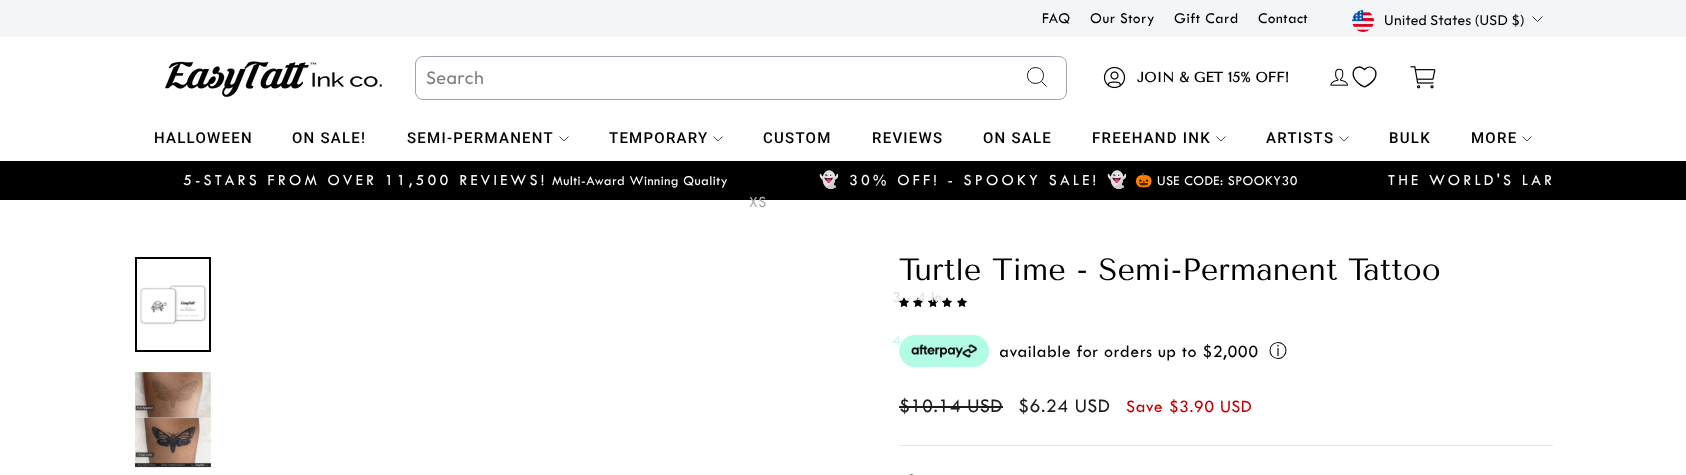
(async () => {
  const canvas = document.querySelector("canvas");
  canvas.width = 1686;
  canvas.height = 475;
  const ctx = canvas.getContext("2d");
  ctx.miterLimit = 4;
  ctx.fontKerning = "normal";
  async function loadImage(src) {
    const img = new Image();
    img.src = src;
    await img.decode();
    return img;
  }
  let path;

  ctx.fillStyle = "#ffffff";
  ctx.fillRect(0, 0, 1686, 475);
  ctx.fillStyle = "#f4f5f7";
  ctx.fillRect(0, 0, 1686, 37);
  ctx.drawImage(await loadImage("img/1.png"), 1352, 10, 22, 22);
  path = new Path2D("M1532.5 16.5L1537.5 21.5L1542.5 16.5");
  ctx.strokeStyle = "#000000";
  ctx.lineWidth = 0.8;
  ctx.stroke(path);
  ctx.drawImage(await loadImage("img/2.png"), 165, 61, 217, 36);
  ctx.beginPath();
  ctx.roundRect(415.5, 56.5, 651, 43, 7.5);
  ctx.strokeStyle = "#9fa6b2";
  ctx.lineWidth = 1;
  ctx.stroke();
  path = new Path2D("M1043.5 75.5C1043.5 86 1027.5 86 1027.5 75.5C1027.5 65 1043.5 65 1043.5 75.5ZM1046.5 86.5L1041.5 81.5");
  ctx.strokeStyle = "#000000";
  ctx.lineWidth = 0.9;
  ctx.stroke(path);
  ctx.drawImage(await loadImage("img/3.png"), 1103, 66, 23, 23);
  ctx.drawImage(await loadImage("img/4.png"), 1330, 68, 18, 18);
  path = new Path2D("M1364.5 87C1362 86 1359.5 84.5 1357.5 82.5C1347.5 73 1356.5 62 1364.5 69.5C1371 63 1379 70.5 1374.5 79C1372 82.5 1368.5 85 1364.5 87Z");
  ctx.lineWidth = 1.3;
  ctx.stroke(path);
  ctx.drawImage(await loadImage("img/5.png"), 1410, 66, 26, 23);
  path = new Path2D("M559.5 136.5L564 141L568.5 136.5");
  ctx.lineWidth = 0.7;
  ctx.stroke(path);
  path = new Path2D("M713.5 136.5L718 141L722.5 136.5");
  ctx.stroke(path);
  path = new Path2D("M1216.5 136.5L1221 141L1225.5 136.5");
  ctx.stroke(path);
  path = new Path2D("M1339.5 136.5L1344 141L1348.5 136.5");
  ctx.stroke(path);
  path = new Path2D("M1522.5 136.5L1527 141L1531.5 136.5");
  ctx.stroke(path);
  ctx.fillStyle = "#000000";
  ctx.fillRect(0, 161, 1686, 39);
  ctx.drawImage(await loadImage("img/6.png"), 140, 285, 67, 40);
  ctx.lineWidth = 2;
  ctx.strokeRect(136, 258, 74, 93);
  ctx.drawImage(await loadImage("img/7.png"), 135, 372, 76, 96);
  ctx.drawImage(await loadImage("img/8.png"), 899, 297, 10, 10);
  ctx.drawImage(await loadImage("img/8.png"), 913, 297, 10, 10);
  ctx.drawImage(await loadImage("img/8.png"), 928, 297, 10, 10);
  ctx.drawImage(await loadImage("img/8.png"), 942, 297, 10, 10);
  ctx.drawImage(await loadImage("img/8.png"), 957, 297, 10, 10);
  ctx.drawImage(await loadImage("img/9.png"), 899, 335, 90, 32);
  ctx.fillStyle = "#1c1d1d";
  ctx.fillRect(899, 406, 104, 2);
  ctx.fillStyle = "#e8e8e1";
  ctx.fillRect(899, 445, 654, 1);
  ctx.drawImage(await loadImage("img/10.png"), 909, 474, 5, 1);
  ctx.letterSpacing = "0.45px";
  ctx.font = "15.5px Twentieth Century";
  ctx.fillStyle = "#000000";
  for (const [text, x, y] of [
    ["FAQ", 1042, 23],
    ["Our Story", 1090, 23],
    ["Gift Card", 1174, 23],
    ["Contact", 1258, 23],
  ]) {
    ctx.fillText(text, x, y);
  }
  ctx.letterSpacing = "0.35px";
  ctx.font = "14px Outfit";
  ctx.fillText("United States (USD $)", 1384, 25);
  ctx.letterSpacing = "0.45px";
  ctx.font = "18px Outfit";
  ctx.fillStyle = "#808080";
  ctx.fillText("Search", 426, 84);
  ctx.letterSpacing = "0px";
  ctx.font = "bold 14px Tenor Sans";
  ctx.fillStyle = "#000000";
  ctx.fillText("JOIN & GET 15% OFF!", 1137, 82);
  ctx.letterSpacing = "1.25px";
  ctx.font = "500 15px Roboto";
  for (const [text, x, y] of [
    ["HALLOWEEN", 154, 143],
    ["ON SALE!", 292, 143],
    ["SEMI-PERMANENT", 407, 143],
    ["TEMPORARY", 609, 143],
    ["CUSTOM", 763, 143],
    ["REVIEWS", 872, 143],
    ["ON SALE", 983, 143],
    ["FREEHAND INK", 1092, 143],
    ["ARTISTS", 1266, 143],
    ["BULK", 1389, 143],
    ["MORE", 1471, 143],
  ]) {
    ctx.fillText(text, x, y);
  }
  ctx.letterSpacing = "3.2px";
  ctx.font = "16px Twentieth Century";
  ctx.fillStyle = "#ffffff";
  ctx.fillText("5-STARS FROM OVER 11,500 REVIEWS!", 183, 185);
  ctx.letterSpacing = "0.45px";
  ctx.font = "14px Twentieth Century";
  ctx.fillText("Multi-Award Winning Quality", 552, 185);
  ctx.letterSpacing = "3.2px";
  ctx.font = "16px Noto Color Emoji";
  ctx.fillText("👻", 819, 185);
  ctx.font = "16px Twentieth Century";
  ctx.fillText("30% OFF! - SPOOKY SALE!", 849, 185);
  ctx.font = "16px Noto Color Emoji";
  ctx.fillText("👻", 1107, 185);
  ctx.letterSpacing = "0.45px";
  ctx.font = "14px Noto Color Emoji";
  ctx.fillText("🎃", 1135, 185);
  ctx.font = "14px Twentieth Century";
  ctx.fillText("USE CODE: SPOOKY30", 1157, 185);
  ctx.letterSpacing = "3.2px";
  ctx.font = "16px Twentieth Century";
  ctx.fillText("THE WORLD'S LAR", 1388, 185);
  ctx.letterSpacing = "0px";
  ctx.font = "30.6px Tenor Sans";
  ctx.fillStyle = "#000000";
  ctx.fillText("Turtle Time - Semi-Permanent Tattoo", 899, 280);
  ctx.letterSpacing = "0.45px";
  ctx.font = "18px Twentieth Century";
  ctx.fillText("available for orders up to $2,000", 999, 357);
  ctx.font = "500 18px WenQuanYi Zen Hei";
  ctx.fillText("ⓘ", 1269, 357);
  ctx.font = "20px Twentieth Century";
  ctx.fillStyle = "#1c1d1d";
  ctx.fillText("$10.14 USD", 899, 412);
  ctx.fillText("$6.24 USD", 1018, 412);
  ctx.font = "18px Twentieth Century";
  ctx.fillStyle = "#c20000";
  ctx.fillText("Save $3.90 USD", 1126, 412);
  ctx.font = "16px Twentieth Century";
  ctx.fillStyle = "#ababab";
  ctx.fillText("XS", 749, 207);
  ctx.fillStyle = "#e2e2e2";
  ctx.fillText("3 - 4 In", 892, 302);
  ctx.fillStyle = "#c7f9e9";
  ctx.fillText("4", 892, 345);
})();
